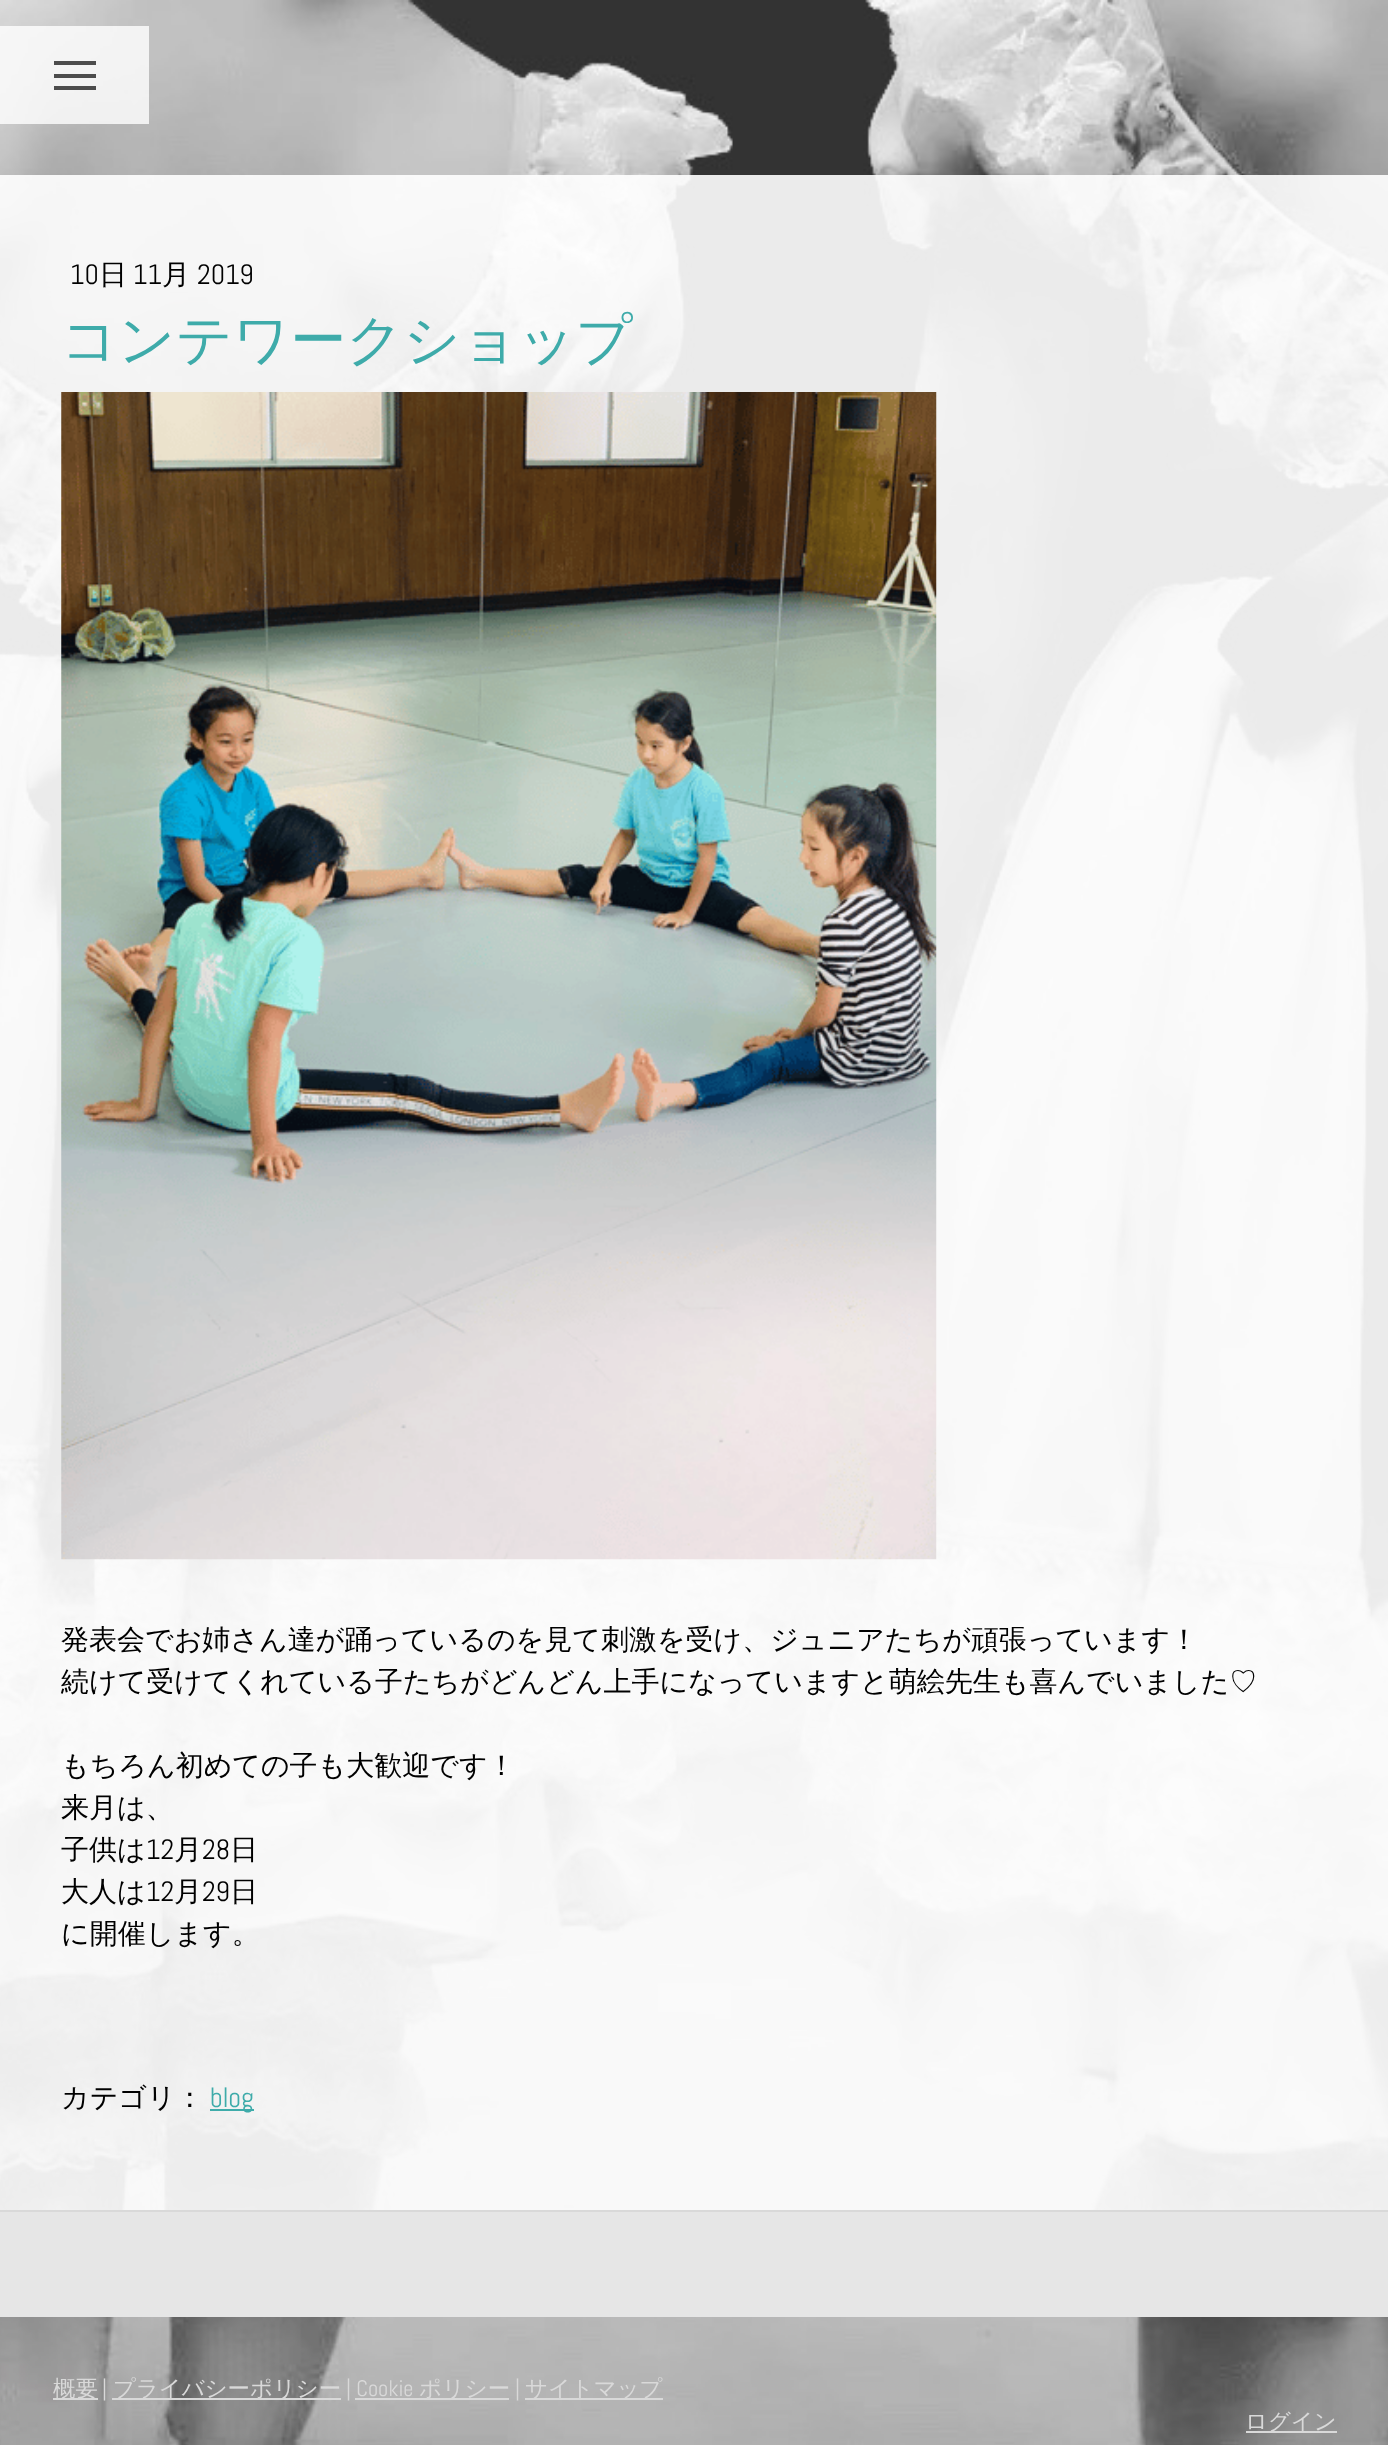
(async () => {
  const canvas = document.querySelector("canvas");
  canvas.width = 1388;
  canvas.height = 2445;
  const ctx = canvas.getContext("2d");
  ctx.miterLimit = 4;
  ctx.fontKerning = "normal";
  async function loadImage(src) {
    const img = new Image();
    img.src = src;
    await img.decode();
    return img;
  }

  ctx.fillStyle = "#ffffff";
  ctx.fillRect(0, 0, 1388, 2445);
  ctx.drawImage(await loadImage("img/1.png"), 0, 0, 1388, 2445);
  for (const [x, y, w, h, color] of [
    [0, 26, 149, 98, "rgba(255, 255, 255, 0.8)"],
    [54, 74, 42, 4, "#4c4c4c"],
    [54, 61, 42, 4, "#4c4c4c"],
    [54, 86, 42, 4, "#4c4c4c"],
    [0, 175, 1388, 2035, "rgba(255, 255, 255, 0.9)"],
  ]) {
    ctx.fillStyle = color;
    ctx.fillRect(x, y, w, h);
  }
  ctx.drawImage(await loadImage("img/2.png"), 61, 392, 876, 1168);
  for (const [x, y, w, h, color] of [
    [210, 2109, 44, 2, "rgba(58, 170, 168, 0.98)"],
    [0, 2212, 1388, 105, "#e6e6e6"],
    [0, 2210, 1388, 2, "#d9d9d9"],
    [53, 2398, 45, 2, "#d9d9d9"],
    [112, 2398, 229, 2, "#d9d9d9"],
    [355, 2398, 154, 2, "#d9d9d9"],
    [525, 2398, 138, 2, "#d9d9d9"],
    [1246, 2431, 91, 2, "#d9d9d9"],
  ]) {
    ctx.fillStyle = color;
    ctx.fillRect(x, y, w, h);
  }
  ctx.font = "28px Abel";
  ctx.fillStyle = "#000000";
  ctx.fillText("10", 70, 284);
  ctx.font = "500 28px WenQuanYi Zen Hei";
  ctx.fillText("日", 99, 284);
  ctx.font = "28px Abel";
  ctx.fillText("11", 133, 284);
  ctx.font = "500 28px WenQuanYi Zen Hei";
  ctx.fillText("月", 162, 284);
  ctx.font = "28px Abel";
  ctx.fillText("2019", 197, 284);
  ctx.font = "500 56px WenQuanYi Zen Hei";
  ctx.fillStyle = "#3eabaa";
  ctx.fillText("コンテワークショップ", 61, 359);
  ctx.font = "500 28px WenQuanYi Zen Hei";
  ctx.fillStyle = "#000000";
  for (const [text, x, y] of [
    ["発表会でお姉さん達が踊っているのを見て刺激を受け、ジュニアたちが頑張っています！", 61, 1649],
    ["続けて受けてくれている子たちがどんどん上手になっていますと萌絵先生も喜んでいました♡", 61, 1691],
    ["もちろん初めての子も大歓迎です！", 61, 1775],
    ["来月は、", 61, 1817],
    ["子供は", 61, 1859],
  ]) {
    ctx.fillText(text, x, y);
  }
  ctx.font = "28px Abel";
  ctx.fillText("12", 146, 1859);
  ctx.font = "500 28px WenQuanYi Zen Hei";
  ctx.fillText("月", 174, 1859);
  ctx.font = "28px Abel";
  ctx.fillText("28", 202, 1859);
  ctx.font = "500 28px WenQuanYi Zen Hei";
  ctx.fillText("日", 230, 1859);
  ctx.fillText("大人は", 61, 1901);
  ctx.font = "28px Abel";
  ctx.fillText("12", 146, 1901);
  ctx.font = "500 28px WenQuanYi Zen Hei";
  ctx.fillText("月", 174, 1901);
  ctx.font = "28px Abel";
  ctx.fillText("29", 202, 1901);
  ctx.font = "500 28px WenQuanYi Zen Hei";
  for (const [text, x, y] of [
    ["日", 230, 1901],
    ["に開催します。", 61, 1943],
    ["カテゴリ：", 61, 2107],
  ]) {
    ctx.fillText(text, x, y);
  }
  ctx.font = "28px Abel";
  ctx.fillStyle = "#3eabaa";
  ctx.fillText("blog", 210, 2107);
  ctx.font = "500 22.4px WenQuanYi Zen Hei";
  ctx.fillStyle = "#d9d9d9";
  ctx.fillText("概要", 53, 2396);
  ctx.font = "22.4px Abel";
  ctx.fillText("|", 102, 2396);
  ctx.font = "500 22.4px WenQuanYi Zen Hei";
  ctx.fillText("プライバシーポリシー", 113, 2396);
  ctx.font = "22.4px Abel";
  ctx.fillText("| Cookie", 346, 2396);
  ctx.font = "500 22.4px WenQuanYi Zen Hei";
  ctx.fillText("ポリシー", 419, 2396);
  ctx.font = "22.4px Abel";
  ctx.fillText("|", 515, 2396);
  ctx.font = "500 22.4px WenQuanYi Zen Hei";
  ctx.fillText("サイトマップ", 525, 2396);
  ctx.fillText("ログイン", 1245, 2429);
})();
